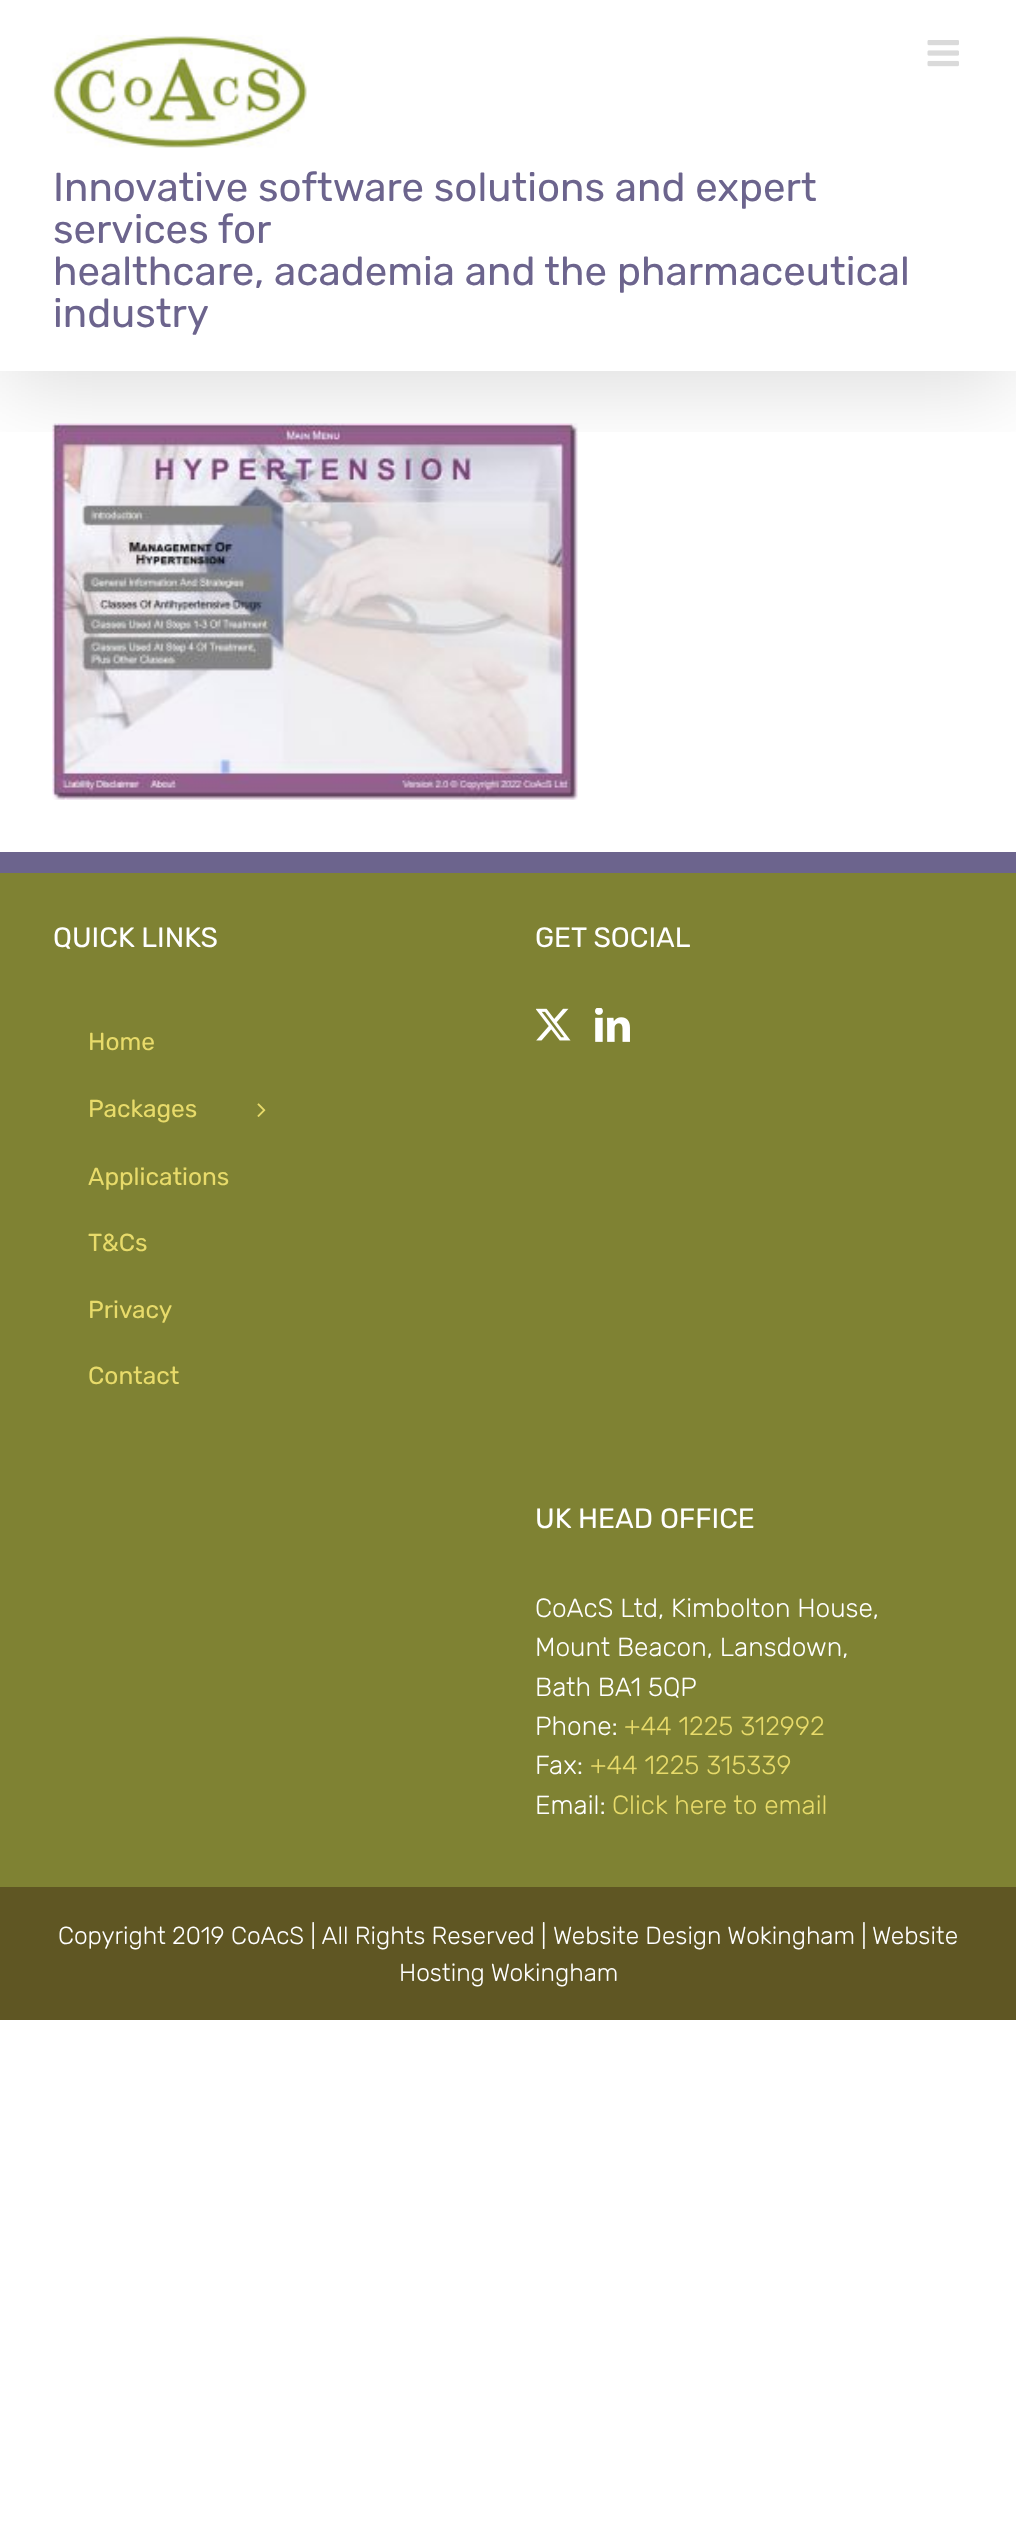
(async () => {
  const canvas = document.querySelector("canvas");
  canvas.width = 1016;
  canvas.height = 2528;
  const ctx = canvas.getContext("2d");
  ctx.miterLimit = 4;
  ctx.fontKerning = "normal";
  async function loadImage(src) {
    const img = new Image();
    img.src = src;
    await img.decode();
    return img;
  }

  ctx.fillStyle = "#ffffff";
  ctx.fillRect(0, 0, 1016, 2528);
  ctx.drawImage(await loadImage("img/3.png"), 52, 423, 526, 377);
  ctx.save();
  ctx.beginPath();
  ctx.rect(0, 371, 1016, 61);
  ctx.clip();
  ctx.fillStyle = "rgba(0, 0, 0, 0.14)";
  ctx.filter = "blur(44px)";
  ctx.beginPath();
  ctx.rect(4, 21, 1009, 364);
  ctx.fill();
  ctx.filter = "none";
  ctx.restore();
  ctx.drawImage(await loadImage("img/1.png"), 927, 40, 32, 27);
  ctx.drawImage(await loadImage("img/2.png"), 52, 35, 256, 113);
  ctx.fillStyle = "#7f8233";
  ctx.fillRect(0, 873, 1016, 1014);
  ctx.fillStyle = "#6c648d";
  ctx.fillRect(0, 852, 1016, 21);
  ctx.drawImage(await loadImage("img/4.png"), 257, 1103, 9, 14);
  ctx.drawImage(await loadImage("img/5.png"), 536, 1008, 35, 33);
  ctx.drawImage(await loadImage("img/6.png"), 595, 1008, 35, 34);
  ctx.fillStyle = "#5f5623";
  ctx.fillRect(0, 1887, 1016, 133);
  ctx.font = "40.25px Rubik";
  ctx.fillStyle = "#6c648d";
  for (const [text, x, y] of [
    ["Innovative software solutions and expert", 53, 201],
    ["services for", 53, 243],
    ["healthcare, academia and the pharmaceutical", 53, 285],
    ["industry", 53, 327],
  ]) {
    ctx.fillText(text, x, y);
  }
  ctx.font = "28px Rubik";
  ctx.fillStyle = "#ffffff";
  ctx.fillText("QUICK LINKS", 53, 947);
  ctx.font = "24.5px Rubik";
  ctx.fillStyle = "#e8db6a";
  for (const [text, x, y] of [
    ["Home", 88, 1050],
    ["Packages", 88, 1117],
    ["Applications", 88, 1185],
    ["T&Cs", 88, 1251],
    ["Privacy", 88, 1318],
    ["Contact", 88, 1384],
  ]) {
    ctx.fillText(text, x, y);
  }
  ctx.font = "28px Rubik";
  ctx.fillStyle = "#ffffff";
  ctx.fillText("GET SOCIAL", 535, 947);
  ctx.fillText("UK HEAD OFFICE", 535, 1528);
  ctx.font = "300 26.25px Rubik";
  for (const [text, x, y] of [
    ["CoAcS Ltd, Kimbolton House,", 535, 1617],
    ["Mount Beacon, Lansdown,", 535, 1656],
    ["Bath BA1 5QP", 535, 1696],
    ["Phone:", 535, 1735],
  ]) {
    ctx.fillText(text, x, y);
  }
  ctx.fillStyle = "#e8db6a";
  ctx.fillText("+44 1225 312992", 624, 1735);
  ctx.fillStyle = "#ffffff";
  ctx.fillText("Fax:", 535, 1774);
  ctx.fillStyle = "#e8db6a";
  ctx.fillText("+44 1225 315339", 590, 1774);
  ctx.fillStyle = "#ffffff";
  ctx.fillText("Email:", 535, 1814);
  ctx.fillStyle = "#e8db6a";
  ctx.fillText("Click here to email", 612, 1814);
  ctx.font = "300 24.5px Rubik";
  ctx.fillStyle = "#ffffff";
  for (const [text, x, y] of [
    ["Copyright 2019 CoAcS | All Rights Reserved |", 58, 1944],
    ["Website Design Wokingham |", 553, 1944],
    ["Website", 872, 1944],
    ["Hosting Wokingham", 399, 1981],
  ]) {
    ctx.fillText(text, x, y);
  }
})();
